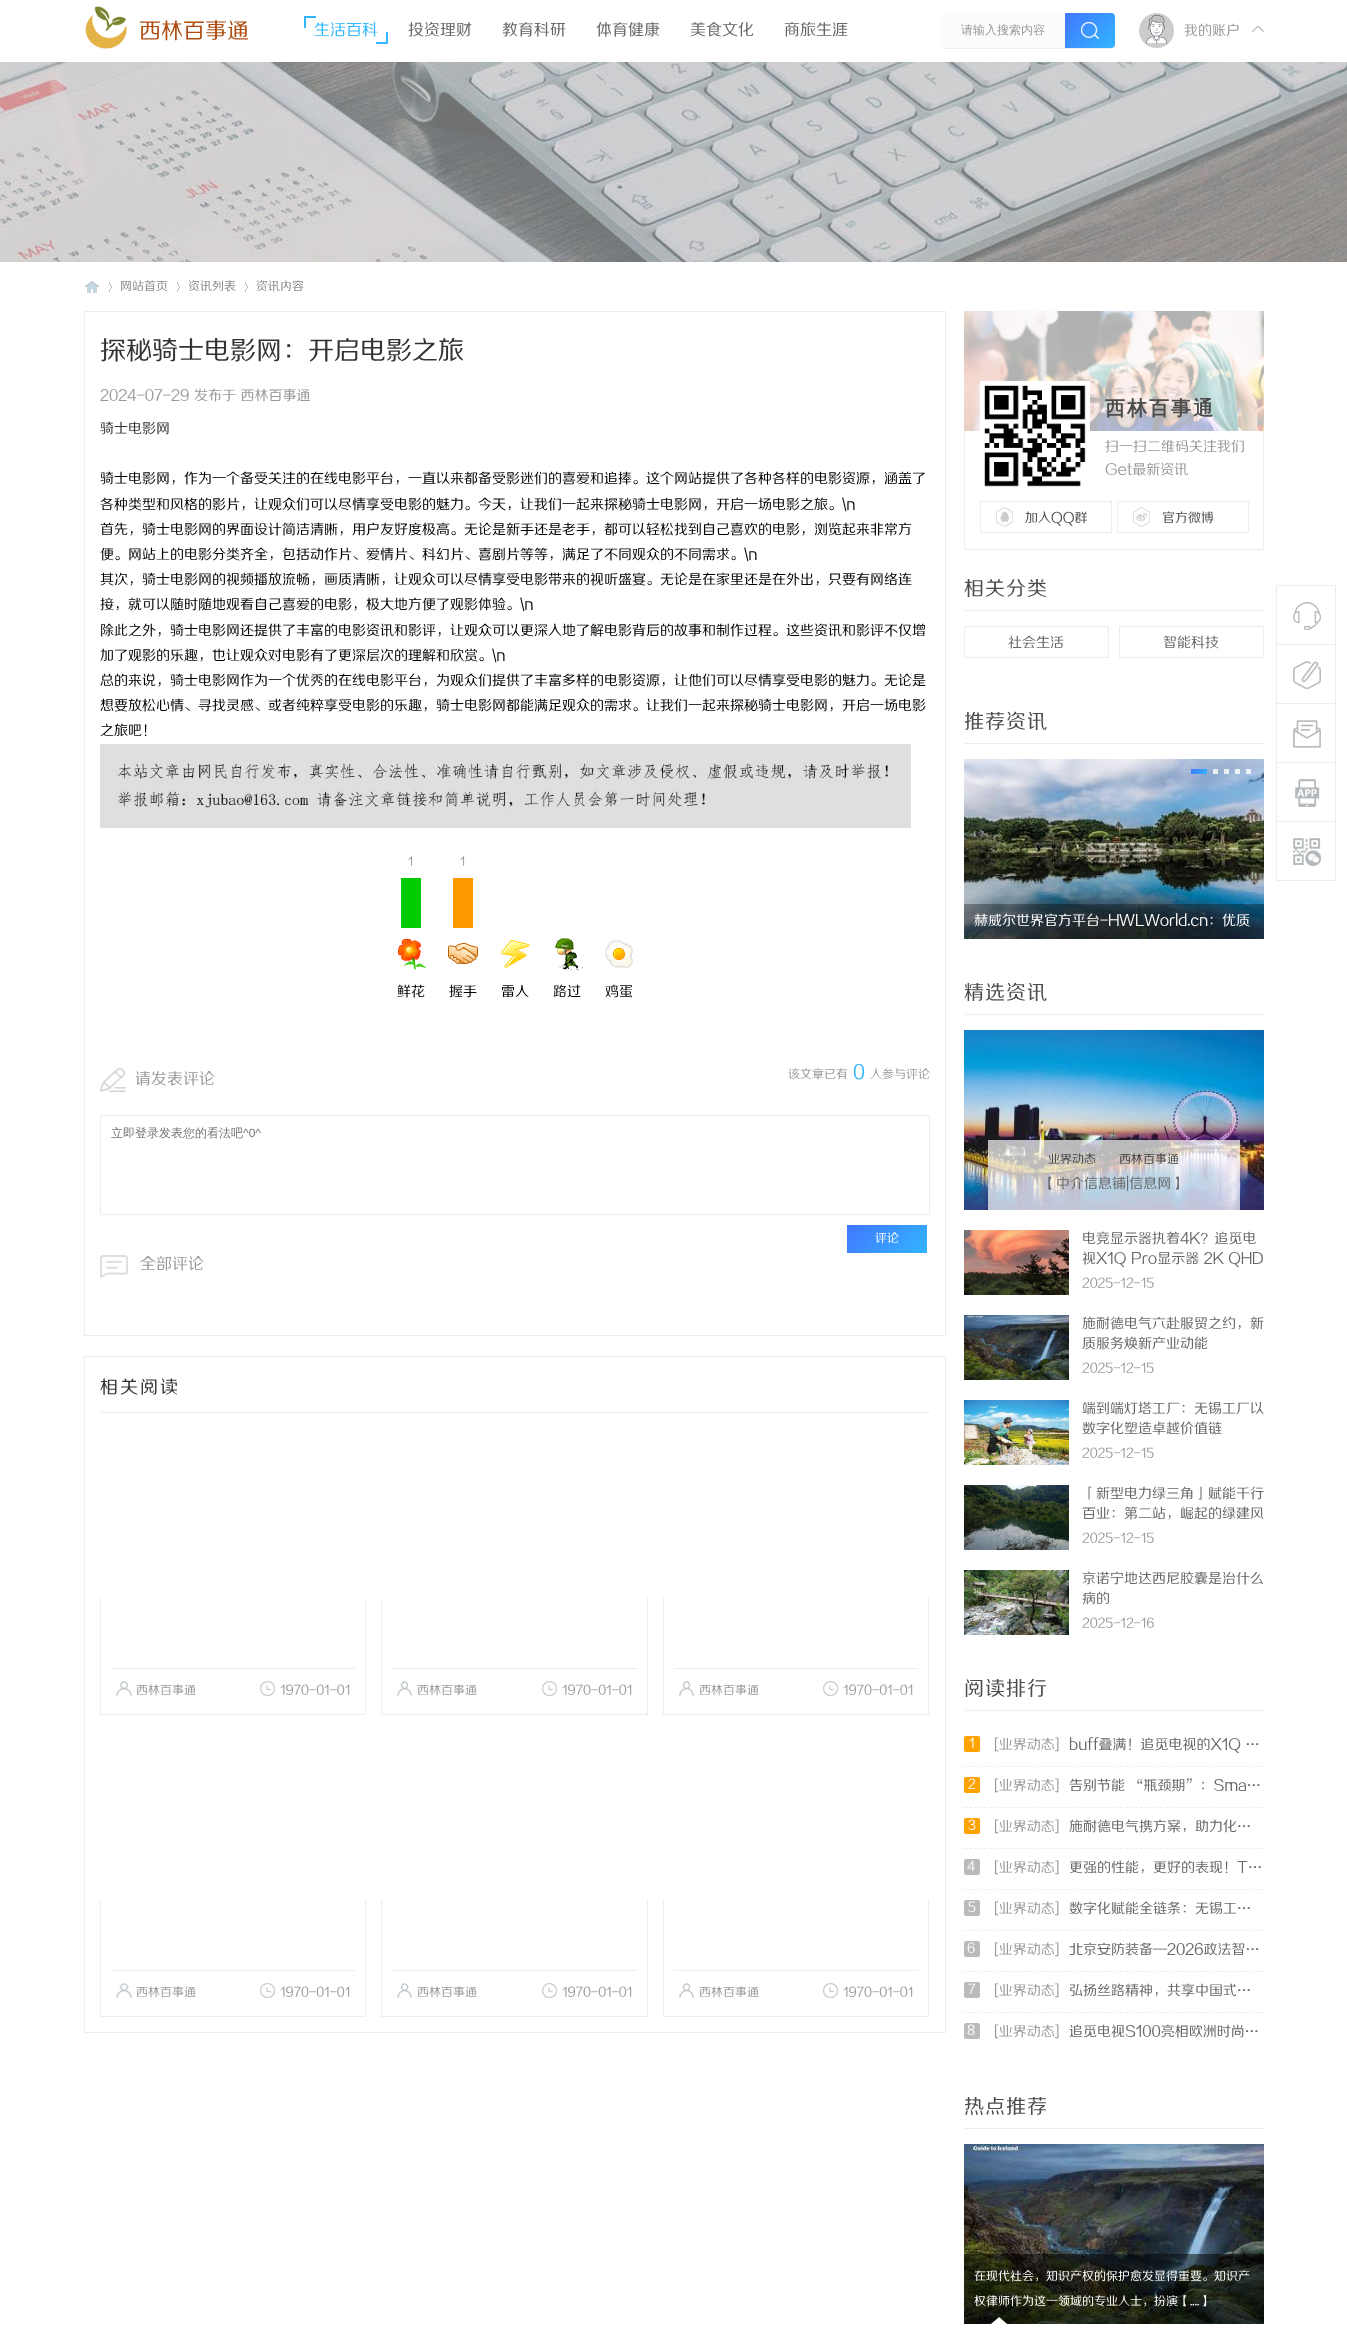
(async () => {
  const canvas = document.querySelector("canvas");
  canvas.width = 1347;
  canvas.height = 2339;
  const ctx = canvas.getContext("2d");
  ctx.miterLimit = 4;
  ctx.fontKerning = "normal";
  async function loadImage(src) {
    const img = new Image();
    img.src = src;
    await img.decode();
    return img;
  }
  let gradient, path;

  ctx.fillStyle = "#ffffff";
  ctx.fillRect(0, 0, 1347, 2339);
  ctx.drawImage(await loadImage("img/1.png"), 84, 6, 45, 43);
  for (const [x, y, w, h, color] of [
    [304, 16, 12, 2, "#32b6ff"],
    [304, 16, 2, 12, "#32b6ff"],
    [386, 32, 2, 12, "#32b6ff"],
    [376, 42, 12, 2, "#32b6ff"],
  ]) {
    ctx.fillStyle = color;
    ctx.fillRect(x, y, w, h);
  }
  ctx.fillStyle = "#fcfcfc";
  ctx.beginPath();
  ctx.roundRect(941, 12, 174, 37, 4);
  ctx.fill();
  ctx.fillStyle = "#ffffff";
  path = new Path2D("M945 12C943 12 941 14 941 16C941 14 943 13 945 13H1111C1113 13 1115 14 1115 16C1115 14 1113 12 1111 12Z");
  ctx.fill(path);
  ctx.fillStyle = "#e9eff5";
  path = new Path2D("M1111 49C1113 49 1115 47 1115 45C1115 47 1113 48 1111 48H945C943 48 941 47 941 45C941 47 943 49 945 49Z");
  ctx.fill(path);
  gradient = ctx.createLinearGradient(1111, 52, 1069, 9);
  gradient.addColorStop(0, "#32b6ff");
  gradient.addColorStop(1, "#4276ff");
  ctx.fillStyle = gradient;
  ctx.beginPath();
  ctx.roundRect(1065, 13, 50, 35, [0, 4, 4, 0]);
  ctx.fill();
  ctx.drawImage(await loadImage("img/2.png"), 1081, 22, 18, 17);
  ctx.drawImage(await loadImage("img/3.png"), 1139, 13, 35, 35);
  ctx.drawImage(await loadImage("img/4.png"), 1252, 26, 12, 6);
  ctx.strokeStyle = "#ededed";
  ctx.strokeRect(1276.5, 585.5, 59, 59);
  ctx.drawImage(await loadImage("img/5.png"), 1293, 602, 28, 28);
  for (const [x, y, w, h, color] of [
    [1335, 645, 1, 236, "#ededed"],
    [1276, 703, 60, 1, "#ededed"],
    [1276, 645, 1, 59, "#ededed"],
  ]) {
    ctx.fillStyle = color;
    ctx.fillRect(x, y, w, h);
  }
  ctx.drawImage(await loadImage("img/6.png"), 1293, 661, 28, 28);
  ctx.fillRect(1276, 762, 60, 1);
  ctx.fillRect(1276, 704, 1, 59);
  ctx.drawImage(await loadImage("img/7.png"), 1293, 720, 28, 28);
  ctx.fillRect(1276, 821, 60, 1);
  ctx.fillRect(1276, 763, 1, 59);
  ctx.drawImage(await loadImage("img/8.png"), 1295, 779, 25, 28);
  ctx.fillRect(1276, 880, 60, 1);
  ctx.fillRect(1276, 822, 1, 59);
  ctx.drawImage(await loadImage("img/9.png"), 1293, 838, 28, 28);
  ctx.drawImage(await loadImage("img/10.png"), 0, 62, 1347, 200);
  ctx.drawImage(await loadImage("img/11.png"), 84, 281, 16, 12);
  ctx.drawImage(await loadImage("img/12.png"), 109, 282, 3, 10);
  ctx.drawImage(await loadImage("img/12.png"), 177, 282, 3, 10);
  ctx.drawImage(await loadImage("img/12.png"), 245, 282, 3, 10);
  ctx.strokeRect(84.5, 311.5, 861, 1024);
  ctx.drawImage(await loadImage("img/13.png"), 100, 744, 811, 84);
  ctx.fillStyle = "#00cc00";
  ctx.fillRect(401, 878, 20, 50);
  ctx.drawImage(await loadImage("img/14.png"), 398, 939, 28, 31);
  ctx.fillStyle = "#ff9900";
  ctx.fillRect(453, 878, 20, 50);
  ctx.drawImage(await loadImage("img/15.png"), 448, 943, 30, 21);
  ctx.drawImage(await loadImage("img/16.png"), 501, 940, 29, 28);
  ctx.drawImage(await loadImage("img/17.png"), 555, 938, 28, 32);
  ctx.drawImage(await loadImage("img/18.png"), 605, 940, 28, 28);
  ctx.drawImage(await loadImage("img/19.png"), 100, 1068, 26, 24);
  ctx.strokeRect(100.5, 1115.5, 829, 99);
  gradient = ctx.createLinearGradient(914, 1266, 860, 1212);
  gradient.addColorStop(0, "#32b6ff");
  gradient.addColorStop(1, "#4276ff");
  ctx.fillStyle = gradient;
  ctx.fillRect(847, 1225, 80, 28);
  ctx.drawImage(await loadImage("img/20.png"), 100, 1255, 28, 23);
  ctx.strokeRect(84.5, 1356.5, 861, 676);
  for (const [x, y, w, h, color] of [
    [100, 1412, 830, 1, "#ededed"],
    [365, 1598, 1, 117, "#ededed"],
    [100, 1714, 266, 1, "#ededed"],
    [100, 1598, 1, 117, "#ededed"],
    [111, 1668, 244, 1, "#ededed"],
  ]) {
    ctx.fillStyle = color;
    ctx.fillRect(x, y, w, h);
  }
  ctx.drawImage(await loadImage("img/21.png"), 116, 1681, 16, 15);
  ctx.drawImage(await loadImage("img/22.png"), 260, 1681, 15, 15);
  for (const [x, y, w, h, color] of [
    [647, 1598, 1, 117, "#ededed"],
    [381, 1714, 267, 1, "#ededed"],
    [381, 1598, 1, 117, "#ededed"],
    [392, 1668, 245, 1, "#ededed"],
  ]) {
    ctx.fillStyle = color;
    ctx.fillRect(x, y, w, h);
  }
  ctx.drawImage(await loadImage("img/23.png"), 397, 1681, 15, 15);
  ctx.drawImage(await loadImage("img/22.png"), 542, 1681, 15, 15);
  for (const [x, y, w, h, color] of [
    [928, 1598, 1, 117, "#ededed"],
    [663, 1714, 266, 1, "#ededed"],
    [663, 1598, 1, 117, "#ededed"],
    [674, 1668, 244, 1, "#ededed"],
  ]) {
    ctx.fillStyle = color;
    ctx.fillRect(x, y, w, h);
  }
  ctx.drawImage(await loadImage("img/23.png"), 679, 1681, 15, 15);
  ctx.drawImage(await loadImage("img/22.png"), 823, 1681, 15, 15);
  for (const [x, y, w, h, color] of [
    [365, 1900, 1, 117, "#ededed"],
    [100, 2016, 266, 1, "#ededed"],
    [100, 1900, 1, 117, "#ededed"],
    [111, 1970, 244, 1, "#ededed"],
  ]) {
    ctx.fillStyle = color;
    ctx.fillRect(x, y, w, h);
  }
  ctx.drawImage(await loadImage("img/21.png"), 116, 1983, 16, 15);
  ctx.drawImage(await loadImage("img/22.png"), 260, 1983, 15, 15);
  for (const [x, y, w, h, color] of [
    [647, 1900, 1, 117, "#ededed"],
    [381, 2016, 267, 1, "#ededed"],
    [381, 1900, 1, 117, "#ededed"],
    [392, 1970, 245, 1, "#ededed"],
  ]) {
    ctx.fillStyle = color;
    ctx.fillRect(x, y, w, h);
  }
  ctx.drawImage(await loadImage("img/23.png"), 397, 1983, 15, 15);
  ctx.drawImage(await loadImage("img/22.png"), 542, 1983, 15, 15);
  for (const [x, y, w, h, color] of [
    [928, 1900, 1, 117, "#ededed"],
    [663, 2016, 266, 1, "#ededed"],
    [663, 1900, 1, 117, "#ededed"],
    [674, 1970, 244, 1, "#ededed"],
  ]) {
    ctx.fillStyle = color;
    ctx.fillRect(x, y, w, h);
  }
  ctx.drawImage(await loadImage("img/23.png"), 679, 1983, 15, 15);
  ctx.drawImage(await loadImage("img/22.png"), 823, 1983, 15, 15);
  ctx.drawImage(await loadImage("img/24.png"), 964, 311, 300, 120);
  for (const [x, y, w, h, color] of [
    [1263, 431, 1, 119, "#ededed"],
    [964, 549, 300, 1, "#ededed"],
    [964, 431, 1, 119, "#ededed"],
  ]) {
    ctx.fillStyle = color;
    ctx.fillRect(x, y, w, h);
  }
  ctx.drawImage(await loadImage("img/25.png"), 980, 381, 110, 106);
  ctx.drawImage(await loadImage("img/26.png"), 996, 507, 17, 20);
  ctx.strokeRect(980.5, 501.5, 131, 31);
  ctx.drawImage(await loadImage("img/27.png"), 1133, 507, 17, 20);
  ctx.strokeRect(1117.5, 501.5, 131, 31);
  ctx.fillRect(964, 610, 300, 1);
  ctx.strokeRect(964.5, 626.5, 144, 31);
  ctx.strokeRect(1119.5, 626.5, 144, 31);
  ctx.fillRect(964, 743, 300, 1);
  ctx.drawImage(await loadImage("img/28.png"), 964, 759, 300, 180);
  gradient = ctx.createLinearGradient(1204, 777, 1194, 766);
  gradient.addColorStop(0, "#32b6ff");
  gradient.addColorStop(1, "#4276ff");
  ctx.fillStyle = gradient;
  ctx.fillRect(1191, 769, 16, 5);
  for (const [x, y, w, h, color] of [
    [1213, 769, 5, 5, "rgba(255, 255, 255, 0.8)"],
    [1224, 769, 5, 5, "rgba(255, 255, 255, 0.8)"],
    [1235, 769, 5, 5, "rgba(255, 255, 255, 0.8)"],
    [1246, 769, 5, 5, "rgba(255, 255, 255, 0.8)"],
    [964, 904, 300, 35, "rgba(0, 0, 0, 0.3)"],
    [964, 1014, 300, 1, "#ededed"],
  ]) {
    ctx.fillStyle = color;
    ctx.fillRect(x, y, w, h);
  }
  ctx.drawImage(await loadImage("img/29.png"), 964, 1030, 300, 180);
  ctx.fillStyle = "rgba(255, 255, 255, 0.7)";
  ctx.fillRect(988, 1140, 252, 70);
  ctx.drawImage(await loadImage("img/30.png"), 964, 1230, 105, 65);
  ctx.drawImage(await loadImage("img/31.png"), 964, 1315, 105, 65);
  ctx.drawImage(await loadImage("img/32.png"), 964, 1400, 105, 65);
  ctx.drawImage(await loadImage("img/33.png"), 964, 1485, 105, 65);
  ctx.drawImage(await loadImage("img/34.png"), 964, 1570, 105, 65);
  ctx.fillStyle = "#ededed";
  ctx.fillRect(964, 1710, 300, 1);
  path = new Path2D("M964 1766.5H1264");
  ctx.setLineDash([3, 2.03]);
  ctx.stroke(path);
  ctx.fillStyle = "#ffa200";
  ctx.beginPath();
  ctx.roundRect(964, 1736, 16, 16, 2);
  ctx.fill();
  path = new Path2D("M964 1807.5H1264");
  ctx.stroke(path);
  ctx.beginPath();
  ctx.roundRect(964, 1777, 16, 16, 2);
  ctx.fill();
  path = new Path2D("M964 1848.5H1264");
  ctx.stroke(path);
  ctx.beginPath();
  ctx.roundRect(964, 1818, 16, 16, 2);
  ctx.fill();
  path = new Path2D("M964 1889.5H1264");
  ctx.stroke(path);
  ctx.fillStyle = "#bbbbbb";
  ctx.beginPath();
  ctx.roundRect(964, 1859, 16, 16, 2);
  ctx.fill();
  path = new Path2D("M964 1930.5H1264");
  ctx.stroke(path);
  ctx.beginPath();
  ctx.roundRect(964, 1900, 16, 16, 2);
  ctx.fill();
  path = new Path2D("M964 1971.5H1264");
  ctx.stroke(path);
  ctx.beginPath();
  ctx.roundRect(964, 1941, 16, 16, 2);
  ctx.fill();
  path = new Path2D("M964 2012.5H1264");
  ctx.stroke(path);
  ctx.beginPath();
  ctx.roundRect(964, 1982, 16, 16, 2);
  ctx.fill();
  ctx.beginPath();
  ctx.roundRect(964, 2023, 16, 16, 2);
  ctx.fill();
  ctx.fillStyle = "#ededed";
  ctx.fillRect(964, 2128, 300, 1);
  ctx.drawImage(await loadImage("img/35.png"), 964, 2144, 300, 180);
  ctx.fillStyle = "rgba(0, 0, 0, 0.5)";
  ctx.fillRect(964, 2254, 300, 70);
  ctx.drawImage(await loadImage("img/36.png"), 991, 2317, 16, 7);
  ctx.font = "22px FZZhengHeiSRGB";
  ctx.fillStyle = "#af4d12";
  ctx.fillText("西林百事通", 139, 38);
  ctx.font = "16px FZZhengHeiSRGB";
  ctx.fillStyle = "#32b6ff";
  ctx.fillText("生活百科", 314, 35);
  ctx.fillStyle = "#666666";
  for (const [text, x, y] of [
    ["投资理财", 408, 35],
    ["教育科研", 502, 35],
    ["体育健康", 596, 35],
    ["美食文化", 690, 35],
    ["商旅生涯", 784, 35],
  ]) {
    ctx.fillText(text, x, y);
  }
  ctx.font = "500 12px WenQuanYi Zen Hei";
  ctx.fillStyle = "#999999";
  ctx.fillText("请输入搜索内容", 961, 34);
  ctx.font = "14px FZZhengHeiSRGB";
  ctx.fillText("我的账户", 1184, 35);
  ctx.font = "12px FZZhengHeiSRGB";
  ctx.fillStyle = "#888888";
  for (const [text, x, y] of [
    ["网站首页", 120, 290],
    ["资讯列表", 188, 290],
    ["资讯内容", 256, 290],
  ]) {
    ctx.fillText(text, x, y);
  }
  ctx.font = "26px FZZhengHeiSRGB";
  ctx.fillStyle = "#333333";
  ctx.fillText("探秘骑士电影网：开启电影之旅", 100, 359);
  ctx.font = "14px FZZhengHeiSRGB";
  ctx.fillStyle = "#999999";
  ctx.fillText("2024-07-29 发布于 西林百事通", 100, 400);
  ctx.fillStyle = "#333333";
  ctx.fillText("骑士电影网", 100, 433);
  ctx.fillStyle = "#000000";
  for (const [text, x, y] of [
    ["骑士电影网，作为一个备受关注的在线电影平台，一直以来都备受影迷们的喜爱和追捧。这个网站提供了各种各样的电影资源，涵盖了", 100, 483],
    ["各种类型和风格的影片，让观众们可以尽情享受电影的魅力。今天，让我们一起来探秘骑士电影网，开启一场电影之旅。\\n", 100, 509],
    ["首先，骑士电影网的界面设计简洁清晰，用户友好度极高。无论是新手还是老手，都可以轻松找到自己喜欢的电影，浏览起来非常方", 100, 534],
    ["便。网站上的电影分类齐全，包括动作片、爱情片、科幻片、喜剧片等等，满足了不同观众的不同需求。\\n", 100, 559],
    ["其次，骑士电影网的视频播放流畅，画质清晰，让观众可以尽情享受电影带来的视听盛宴。无论是在家里还是在外出，只要有网络连", 100, 584],
    ["接，就可以随时随地观看自己喜爱的电影，极大地方便了观影体验。\\n", 100, 609],
    ["除此之外，骑士电影网还提供了丰富的电影资讯和影评，让观众可以更深入地了解电影背后的故事和制作过程。这些资讯和影评不仅增", 100, 635],
    ["加了观影的乐趣，也让观众对电影有了更深层次的理解和欣赏。\\n", 100, 660],
    ["总的来说，骑士电影网作为一个优秀的在线电影平台，为观众们提供了丰富多样的电影资源，让他们可以尽情享受电影的魅力。无论是", 100, 685],
    ["想要放松心情、寻找灵感、或者纯粹享受电影的乐趣，骑士电影网都能满足观众的需求。让我们一起来探秘骑士电影网，开启一场电影", 100, 710],
    ["之旅吧！", 100, 735],
  ]) {
    ctx.fillText(text, x, y);
  }
  ctx.font = "11px FZZhengHeiSRGB";
  ctx.fillStyle = "#999999";
  ctx.fillText("1", 408, 865);
  ctx.font = "14px FZZhengHeiSRGB";
  ctx.fillStyle = "#000000";
  ctx.fillText("鲜花", 397, 996);
  ctx.font = "11px FZZhengHeiSRGB";
  ctx.fillStyle = "#999999";
  ctx.fillText("1", 460, 865);
  ctx.font = "14px FZZhengHeiSRGB";
  ctx.fillStyle = "#000000";
  for (const [text, x, y] of [
    ["握手", 449, 996],
    ["雷人", 501, 996],
    ["路过", 553, 996],
    ["鸡蛋", 605, 996],
  ]) {
    ctx.fillText(text, x, y);
  }
  ctx.font = "16px FZZhengHeiSRGB";
  ctx.fillStyle = "#999999";
  ctx.fillText("请发表评论", 135, 1084);
  ctx.font = "12px FZZhengHeiSRGB";
  ctx.fillText("该文章已有", 788, 1078);
  ctx.font = "18px FZZhengHeiSRGB";
  ctx.fillStyle = "#32b6ff";
  ctx.fillText("0", 853, 1078);
  ctx.font = "12px FZZhengHeiSRGB";
  ctx.fillStyle = "#999999";
  ctx.fillText("人参与评论", 870, 1078);
  ctx.font = "500 12px WenQuanYi Zen Hei";
  ctx.fillStyle = "#757575";
  ctx.fillText("立即登录发表您的看法吧", 111, 1137);
  ctx.font = "12px Liberation Sans";
  ctx.fillText("^0^", 243, 1137);
  ctx.font = "12px FZZhengHeiSRGB";
  ctx.fillStyle = "#ffffff";
  ctx.fillText("评论", 875, 1242);
  ctx.font = "16px FZZhengHeiSRGB";
  ctx.fillStyle = "#999999";
  ctx.fillText("全部评论", 140, 1269);
  ctx.letterSpacing = "2px";
  ctx.font = "18px FZZhengHeiSRGB";
  ctx.fillStyle = "#333333";
  ctx.fillText("相关阅读", 100, 1393);
  ctx.letterSpacing = "0px";
  ctx.font = "12px FZZhengHeiSRGB";
  ctx.fillStyle = "#999999";
  for (const [text, x, y] of [
    ["西林百事通", 136, 1694],
    ["1970-01-01", 280, 1694],
    ["西林百事通", 417, 1694],
    ["1970-01-01", 562, 1694],
    ["西林百事通", 699, 1694],
    ["1970-01-01", 843, 1694],
    ["西林百事通", 136, 1996],
    ["1970-01-01", 280, 1996],
    ["西林百事通", 417, 1996],
    ["1970-01-01", 562, 1996],
    ["西林百事通", 699, 1996],
    ["1970-01-01", 843, 1996],
  ]) {
    ctx.fillText(text, x, y);
  }
  ctx.letterSpacing = "2px";
  ctx.font = "bold 20px WenQuanYi Zen Hei";
  ctx.fillStyle = "#4c4c4c";
  ctx.fillText("西林百事通", 1105, 415);
  ctx.letterSpacing = "0px";
  ctx.font = "14px FZZhengHeiSRGB";
  ctx.fillStyle = "#999999";
  ctx.fillText("扫一扫二维码关注我们", 1105, 451);
  ctx.fillText("Get最新资讯", 1105, 474);
  ctx.font = "13px FZZhengHeiSRGB";
  ctx.fillStyle = "#4c4c4c";
  ctx.fillText("加入QQ群", 1025, 522);
  ctx.fillText("官方微博", 1162, 522);
  ctx.letterSpacing = "1px";
  ctx.font = "20px FZZhengHeiSRGB";
  ctx.fillText("相关分类", 964, 595);
  ctx.letterSpacing = "0px";
  ctx.font = "14px FZZhengHeiSRGB";
  ctx.fillStyle = "#666666";
  ctx.fillText("社会生活", 1008, 647);
  ctx.fillText("智能科技", 1163, 647);
  ctx.letterSpacing = "1px";
  ctx.font = "20px FZZhengHeiSRGB";
  ctx.fillStyle = "#4c4c4c";
  ctx.fillText("推荐资讯", 964, 728);
  ctx.letterSpacing = "0px";
  ctx.font = "14px FZZhengHeiSRGB";
  ctx.fillStyle = "#ffffff";
  ctx.fillText("赫威尔世界官方平台-HWLWorld.cn：优质", 974, 925);
  ctx.letterSpacing = "1px";
  ctx.font = "20px FZZhengHeiSRGB";
  ctx.fillStyle = "#4c4c4c";
  ctx.fillText("精选资讯", 964, 999);
  ctx.letterSpacing = "0px";
  ctx.font = "12px FZZhengHeiSRGB";
  ctx.fillStyle = "#444444";
  ctx.fillText("业界动态", 1048, 1163);
  ctx.fillText("西林百事通", 1119, 1163);
  ctx.font = "14px FZZhengHeiSRGB";
  ctx.fillStyle = "#666666";
  for (const [text, x, y] of [
    ["【中介信息铺|信息网】", 1042, 1188],
    ["电竞显示器执着4K？追觅电", 1082, 1243],
    ["视X1Q Pro显示器 2K QHD", 1082, 1263],
  ]) {
    ctx.fillText(text, x, y);
  }
  ctx.font = "12px FZZhengHeiSRGB";
  ctx.fillStyle = "#999999";
  ctx.fillText("2025-12-15", 1082, 1287);
  ctx.font = "14px FZZhengHeiSRGB";
  ctx.fillStyle = "#666666";
  ctx.fillText("施耐德电气六赴服贸之约，新", 1082, 1328);
  ctx.fillText("质服务焕新产业动能", 1082, 1348);
  ctx.font = "12px FZZhengHeiSRGB";
  ctx.fillStyle = "#999999";
  ctx.fillText("2025-12-15", 1082, 1372);
  ctx.font = "14px FZZhengHeiSRGB";
  ctx.fillStyle = "#666666";
  ctx.fillText("端到端灯塔工厂：无锡工厂以", 1082, 1413);
  ctx.fillText("数字化塑造卓越价值链", 1082, 1433);
  ctx.font = "12px FZZhengHeiSRGB";
  ctx.fillStyle = "#999999";
  ctx.fillText("2025-12-15", 1082, 1457);
  ctx.font = "14px FZZhengHeiSRGB";
  ctx.fillStyle = "#666666";
  ctx.fillText("「新型电力绿三角」赋能千行", 1082, 1498);
  ctx.fillText("百业：第二站，崛起的绿建风", 1082, 1518);
  ctx.font = "12px FZZhengHeiSRGB";
  ctx.fillStyle = "#999999";
  ctx.fillText("2025-12-15", 1082, 1542);
  ctx.font = "14px FZZhengHeiSRGB";
  ctx.fillStyle = "#666666";
  ctx.fillText("京诺宁地达西尼胶囊是治什么", 1082, 1583);
  ctx.fillText("病的", 1082, 1603);
  ctx.font = "12px FZZhengHeiSRGB";
  ctx.fillStyle = "#999999";
  ctx.fillText("2025-12-16", 1082, 1627);
  ctx.letterSpacing = "1px";
  ctx.font = "20px FZZhengHeiSRGB";
  ctx.fillStyle = "#4c4c4c";
  ctx.fillText("阅读排行", 964, 1695);
  ctx.letterSpacing = "0px";
  ctx.font = "12px FZZhengHeiSRGB";
  ctx.fillStyle = "#ffffff";
  ctx.fillText("1", 969, 1747);
  ctx.font = "14px FZZhengHeiSRGB";
  ctx.fillStyle = "#999999";
  ctx.fillText("[业界动态]", 994, 1749);
  ctx.fillStyle = "#666666";
  ctx.fillText("buff叠满！追觅电视的X1Q …", 1069, 1749);
  ctx.font = "12px FZZhengHeiSRGB";
  ctx.fillStyle = "#ffffff";
  ctx.fillText("2", 968, 1788);
  ctx.font = "14px FZZhengHeiSRGB";
  ctx.fillStyle = "#999999";
  ctx.fillText("[业界动态]", 994, 1790);
  ctx.fillStyle = "#666666";
  ctx.fillText("告别节能 “瓶颈期”：Sma…", 1069, 1790);
  ctx.font = "12px FZZhengHeiSRGB";
  ctx.fillStyle = "#ffffff";
  ctx.fillText("3", 968, 1829);
  ctx.font = "14px FZZhengHeiSRGB";
  ctx.fillStyle = "#999999";
  ctx.fillText("[业界动态]", 994, 1831);
  ctx.fillStyle = "#666666";
  ctx.fillText("施耐德电气携方案，助力化…", 1069, 1831);
  ctx.font = "12px FZZhengHeiSRGB";
  ctx.fillStyle = "#ffffff";
  ctx.fillText("4", 967, 1870);
  ctx.font = "14px FZZhengHeiSRGB";
  ctx.fillStyle = "#999999";
  ctx.fillText("[业界动态]", 994, 1872);
  ctx.fillStyle = "#666666";
  ctx.fillText("更强的性能，更好的表现！T…", 1069, 1872);
  ctx.font = "12px FZZhengHeiSRGB";
  ctx.fillStyle = "#ffffff";
  ctx.fillText("5", 968, 1911);
  ctx.font = "14px FZZhengHeiSRGB";
  ctx.fillStyle = "#999999";
  ctx.fillText("[业界动态]", 994, 1913);
  ctx.fillStyle = "#666666";
  ctx.fillText("数字化赋能全链条：无锡工…", 1069, 1913);
  ctx.font = "12px FZZhengHeiSRGB";
  ctx.fillStyle = "#ffffff";
  ctx.fillText("6", 967, 1952);
  ctx.font = "14px FZZhengHeiSRGB";
  ctx.fillStyle = "#999999";
  ctx.fillText("[业界动态]", 994, 1954);
  ctx.fillStyle = "#666666";
  ctx.fillText("北京安防装备—2026政法智…", 1069, 1954);
  ctx.font = "12px FZZhengHeiSRGB";
  ctx.fillStyle = "#ffffff";
  ctx.fillText("7", 968, 1993);
  ctx.font = "14px FZZhengHeiSRGB";
  ctx.fillStyle = "#999999";
  ctx.fillText("[业界动态]", 994, 1995);
  ctx.fillStyle = "#666666";
  ctx.fillText("弘扬丝路精神，共享中国式…", 1069, 1995);
  ctx.font = "12px FZZhengHeiSRGB";
  ctx.fillStyle = "#ffffff";
  ctx.fillText("8", 967, 2034);
  ctx.font = "14px FZZhengHeiSRGB";
  ctx.fillStyle = "#999999";
  ctx.fillText("[业界动态]", 994, 2036);
  ctx.fillStyle = "#666666";
  ctx.fillText("追觅电视S100亮相欧洲时尚…", 1069, 2036);
  ctx.letterSpacing = "1px";
  ctx.font = "20px FZZhengHeiSRGB";
  ctx.fillStyle = "#4c4c4c";
  ctx.fillText("热点推荐", 964, 2113);
  ctx.letterSpacing = "0px";
  ctx.font = "12px FZZhengHeiSRGB";
  ctx.fillStyle = "#ffffff";
  ctx.fillText("在现代社会，知识产权的保护愈发显得重要。知识产", 974, 2280);
  ctx.fillText("权律师作为这一领域的专业人士，扮演【....】", 974, 2305);
})();
